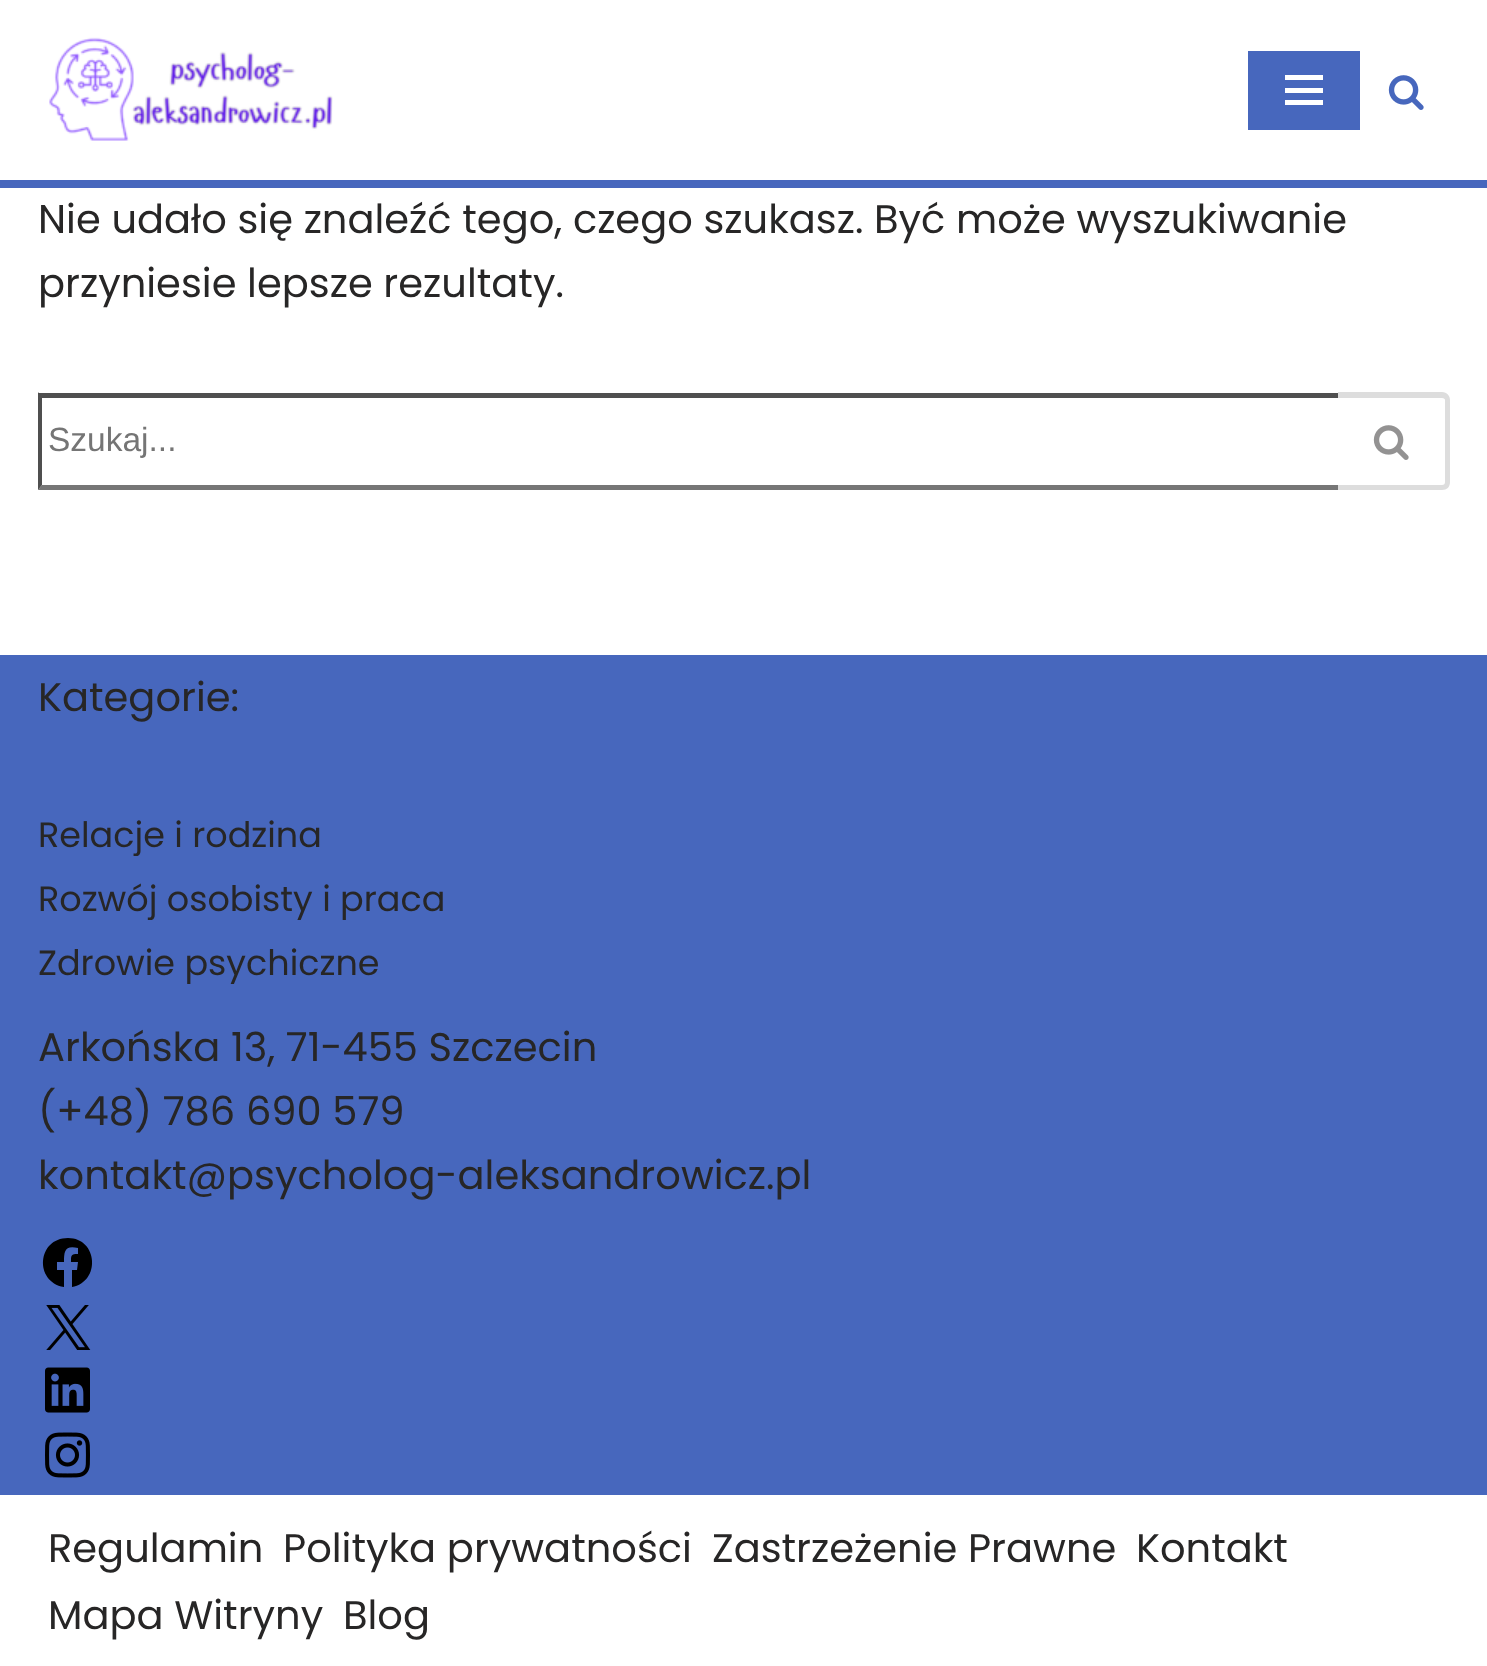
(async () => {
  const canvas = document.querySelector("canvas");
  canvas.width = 1487;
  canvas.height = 1666;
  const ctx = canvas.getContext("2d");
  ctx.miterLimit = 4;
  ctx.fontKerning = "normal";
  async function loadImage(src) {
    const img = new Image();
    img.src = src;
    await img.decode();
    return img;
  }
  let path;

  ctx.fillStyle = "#ffffff";
  ctx.fillRect(0, 0, 1487, 1666);
  ctx.fillStyle = "#4767bd";
  ctx.fillRect(0, 180, 1487, 8);
  ctx.drawImage(await loadImage("img/1.png"), 49, 37, 284, 104);
  for (const [x, y, w, h, color] of [
    [1248, 51, 112, 79, "#4767bd"],
    [1285, 75, 38, 5, "#ffffff"],
    [1285, 88, 38, 5, "#ffffff"],
    [1285, 100, 38, 5, "#ffffff"],
  ]) {
    ctx.fillStyle = color;
    ctx.fillRect(x, y, w, h);
  }
  ctx.drawImage(await loadImage("img/2.png"), 1388, 75, 36, 35);
  ctx.fillStyle = "#4f4f4f";
  ctx.fillRect(38, 393, 1300, 5);
  ctx.fillStyle = "#767676";
  path = new Path2D("M1338 490H38L42 485H1338Z");
  ctx.fill(path);
  ctx.fillStyle = "#4f4f4f";
  path = new Path2D("M38 490V392L42 398V485Z");
  ctx.fill(path);
  ctx.fillStyle = "#dddddd";
  path = new Path2D("M1338 392H1442C1447 392 1450 396 1450 400V482C1450 487 1447 490 1442 490H1338ZM1338 398H1442C1444 398 1445 399 1445 400V482C1445 484 1444 485 1442 485H1338Z");
  ctx.fill(path, "evenodd");
  ctx.drawImage(await loadImage("img/3.png"), 1373, 425, 36, 35);
  ctx.fillStyle = "#4767bd";
  ctx.fillRect(0, 655, 1487, 840);
  ctx.fillStyle = "#000000";
  path = new Path2D("M68 1238C37 1238 34 1282 64 1287V1270H57V1262H64C64 1251 65 1245 78 1248V1254C71 1254 71 1255 71 1262H78L77 1270H72V1287C101 1282 98 1238 68 1238Z");
  ctx.fill(path);
  ctx.drawImage(await loadImage("img/4.png"), 46, 1305, 45, 45);
  ctx.drawImage(await loadImage("img/5.png"), 45, 1367, 45, 46);
  ctx.drawImage(await loadImage("img/6.png"), 45, 1432, 45, 46);
  ctx.font = "40px Poppins";
  ctx.fillStyle = "#272626";
  ctx.fillText("Nie udało się znaleźć tego, czego szukasz. Być może wyszukiwanie", 38, 233);
  ctx.fillText("przyniesie lepsze rezultaty.", 38, 297);
  ctx.font = "33.5px Liberation Sans";
  ctx.fillStyle = "#757575";
  ctx.fillText("Szukaj...", 48, 451);
  ctx.font = "40px Poppins";
  ctx.fillStyle = "#272626";
  ctx.fillText("Kategorie:", 38, 711);
  ctx.font = "35px Poppins";
  for (const [text, x, y] of [
    ["Relacje i rodzina", 38, 847],
    ["Rozwój osobisty i praca", 38, 911],
    ["Zdrowie psychiczne", 38, 975],
  ]) {
    ctx.fillText(text, x, y);
  }
  ctx.font = "40px Poppins";
  for (const [text, x, y] of [
    ["Arkońska 13, 71-455 Szczecin", 38, 1061],
    ["(+48) 786 690 579", 38, 1125],
    ["kontakt@psycholog-aleksandrowicz.pl", 38, 1189],
    ["Regulamin", 48, 1562],
    ["Polityka prywatności", 283, 1562],
    ["Zastrzeżenie Prawne", 712, 1562],
    ["Kontakt", 1136, 1562],
    ["Mapa Witryny", 48, 1629],
    ["Blog", 343, 1629],
  ]) {
    ctx.fillText(text, x, y);
  }
})();
